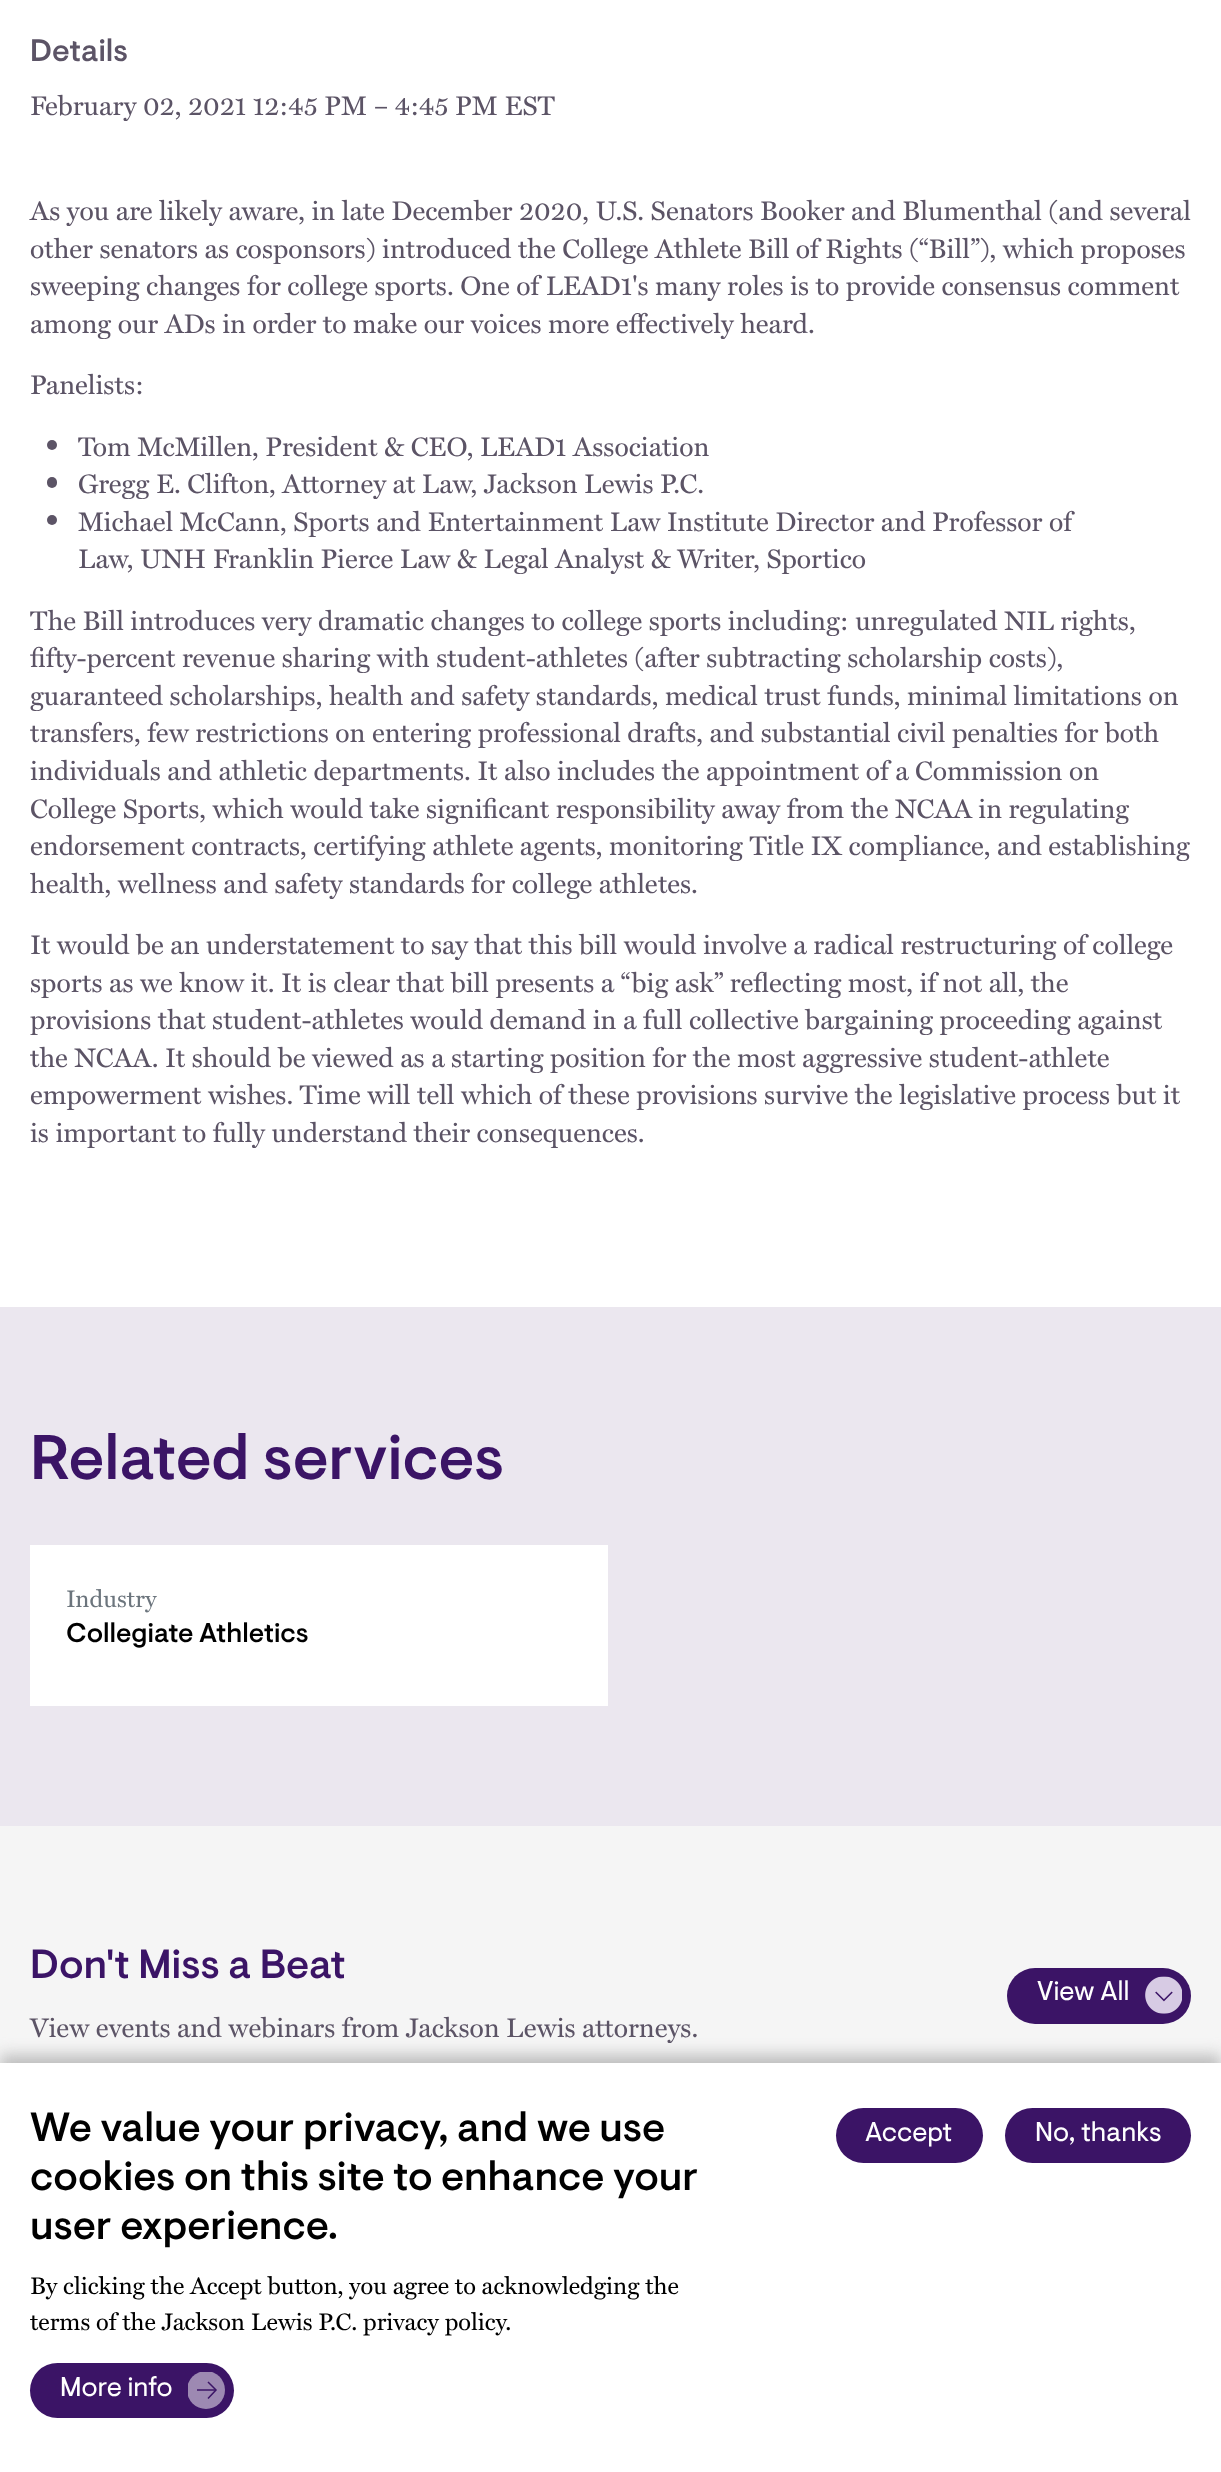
(async () => {
  const canvas = document.querySelector("canvas");
  canvas.width = 1221;
  canvas.height = 2472;
  const ctx = canvas.getContext("2d");
  ctx.miterLimit = 4;
  ctx.fontKerning = "normal";
  async function loadImage(src) {
    const img = new Image();
    img.src = src;
    await img.decode();
    return img;
  }
  let path;

  ctx.fillStyle = "#ffffff";
  ctx.fillRect(0, 0, 1221, 2472);
  ctx.fillStyle = "#5c5466";
  ctx.beginPath();
  ctx.arc(52, 445, 5, 0, Math.PI * 2);
  ctx.fill();
  ctx.beginPath();
  ctx.roundRect(47, 477, 10, 11, 5);
  ctx.fill();
  ctx.beginPath();
  ctx.arc(52, 520, 5, 0, Math.PI * 2);
  ctx.fill();
  for (const [x, y, w, h, color] of [
    [0, 1307, 1221, 519, "#ebe7ef"],
    [30, 1545, 578, 161, "#ffffff"],
    [0, 1826, 1221, 237, "#f5f5f5"],
  ]) {
    ctx.fillStyle = color;
    ctx.fillRect(x, y, w, h);
  }
  ctx.fillStyle = "#3b1466";
  ctx.beginPath();
  ctx.roundRect(1007, 1968, 184, 56, 28);
  ctx.fill();
  ctx.drawImage(await loadImage("img/1.png"), 1145, 1976, 37, 38);
  ctx.fillStyle = "#bcbcbc";
  ctx.filter = "blur(7.5px)";
  ctx.beginPath();
  ctx.rect(0, 2055, 1221, 410);
  ctx.fill();
  ctx.filter = "none";
  ctx.fillStyle = "#ffffff";
  ctx.fillRect(0, 2063, 1221, 409);
  ctx.fillStyle = "#3b1466";
  ctx.beginPath();
  ctx.roundRect(30, 2363, 204, 55, 27.5);
  ctx.fill();
  ctx.save();
  ctx.beginPath();
  ctx.rect(188, 2372, 37, 37);
  ctx.clip();
  ctx.fillStyle = "#9d89b2";
  ctx.beginPath();
  ctx.arc(206, 2390, 19, 0, Math.PI * 2);
  ctx.fill();
  ctx.restore();
  path = new Path2D("M208 2382L216 2390L208 2398.5");
  ctx.strokeStyle = "#3b1466";
  ctx.lineWidth = 1.5;
  ctx.stroke(path);
  ctx.fillStyle = "rgba(59, 20, 102, 0.75)";
  ctx.fillRect(197, 2389, 19, 2);
  ctx.fillStyle = "#3b1466";
  ctx.beginPath();
  ctx.roundRect(836, 2108, 147, 55, 27.5);
  ctx.fill();
  ctx.beginPath();
  ctx.roundRect(1005, 2108, 186, 55, 27.5);
  ctx.fill();
  ctx.font = "500 31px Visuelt";
  ctx.fillStyle = "#5c5466";
  ctx.fillText("Details", 30, 61);
  ctx.font = "27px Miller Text";
  for (const [text, x, y] of [
    ["February 02, 2021 12:45 PM – 4:45 PM EST", 30, 115],
    ["As you are likely aware, in late December 2020, U.S. Senators Booker and Blumenthal (and several", 30, 220],
    ["other senators as cosponsors) introduced the College Athlete Bill of Rights (“Bill”), which proposes", 30, 258],
    ["sweeping changes for college sports. One of LEAD1's many roles is to provide consensus comment", 30, 295],
    ["among our ADs in order to make our voices more effectively heard.", 30, 333],
    ["Panelists:", 30, 394],
    ["Tom McMillen, President & CEO, LEAD1 Association", 78, 456],
    ["Gregg E. Clifton, Attorney at Law, Jackson Lewis P.C.", 78, 493],
    ["Michael McCann, Sports and Entertainment Law Institute Director and Professor of", 78, 531],
    ["Law, UNH Franklin Pierce Law & Legal Analyst & Writer, Sportico", 78, 568],
    ["The Bill introduces very dramatic changes to college sports including: unregulated NIL rights,", 30, 630],
    ["fifty-percent revenue sharing with student-athletes (after subtracting scholarship costs),", 30, 667],
    ["guaranteed scholarships, health and safety standards, medical trust funds, minimal limitations on", 30, 705],
    ["transfers, few restrictions on entering professional drafts, and substantial civil penalties for both", 30, 742],
    ["individuals and athletic departments. It also includes the appointment of a Commission on", 30, 780],
    ["College Sports, which would take significant responsibility away from the NCAA in regulating", 30, 818],
    ["endorsement contracts, certifying athlete agents, monitoring Title IX compliance, and establishing", 30, 855],
    ["health, wellness and safety standards for college athletes.", 30, 893],
    ["It would be an understatement to say that this bill would involve a radical restructuring of college", 30, 954],
    ["sports as we know it. It is clear that bill presents a “big ask” reflecting most, if not all, the", 30, 992],
    ["provisions that student-athletes would demand in a full collective bargaining proceeding against", 30, 1029],
    ["the NCAA. It should be viewed as a starting position for the most aggressive student-athlete", 30, 1067],
    ["empowerment wishes. Time will tell which of these provisions survive the legislative process but it", 30, 1104],
    ["is important to fully understand their consequences.", 30, 1142],
  ]) {
    ctx.fillText(text, x, y);
  }
  ctx.font = "500 63px Visuelt";
  ctx.fillStyle = "#3b1466";
  ctx.fillText("Related services", 30, 1479);
  ctx.font = "24px Miller Text";
  ctx.fillStyle = "#6c757d";
  ctx.fillText("Industry", 66, 1607);
  ctx.font = "500 27px Visuelt";
  ctx.fillStyle = "#000000";
  ctx.fillText("Collegiate Athletics", 66, 1642);
  ctx.font = "500 40.7px Visuelt";
  ctx.fillStyle = "#3b1466";
  ctx.fillText("Don't Miss a Beat", 30, 1978);
  ctx.font = "27px Miller Text";
  ctx.fillStyle = "#5c5466";
  ctx.fillText("View events and webinars from Jackson Lewis attorneys.", 30, 2037);
  ctx.font = "27px Visuelt";
  ctx.fillStyle = "#ffffff";
  ctx.fillText("View All", 1037, 2000);
  ctx.font = "500 40.7px Visuelt";
  ctx.fillStyle = "#000000";
  for (const [text, x, y] of [
    ["We value your privacy, and we use", 30, 2141],
    ["cookies on this site to enhance your", 30, 2190],
    ["user experience.", 30, 2239],
  ]) {
    ctx.fillText(text, x, y);
  }
  ctx.font = "24px Miller Text";
  ctx.fillText("By clicking the Accept button, you agree to acknowledging the", 30, 2294);
  ctx.fillText("terms of the Jackson Lewis P.C. privacy policy.", 30, 2330);
  ctx.font = "27px Visuelt";
  ctx.fillStyle = "#ffffff";
  for (const [text, x, y] of [
    ["More info", 60, 2396],
    ["Accept", 865, 2141],
    ["No, thanks", 1035, 2141],
  ]) {
    ctx.fillText(text, x, y);
  }
})();
